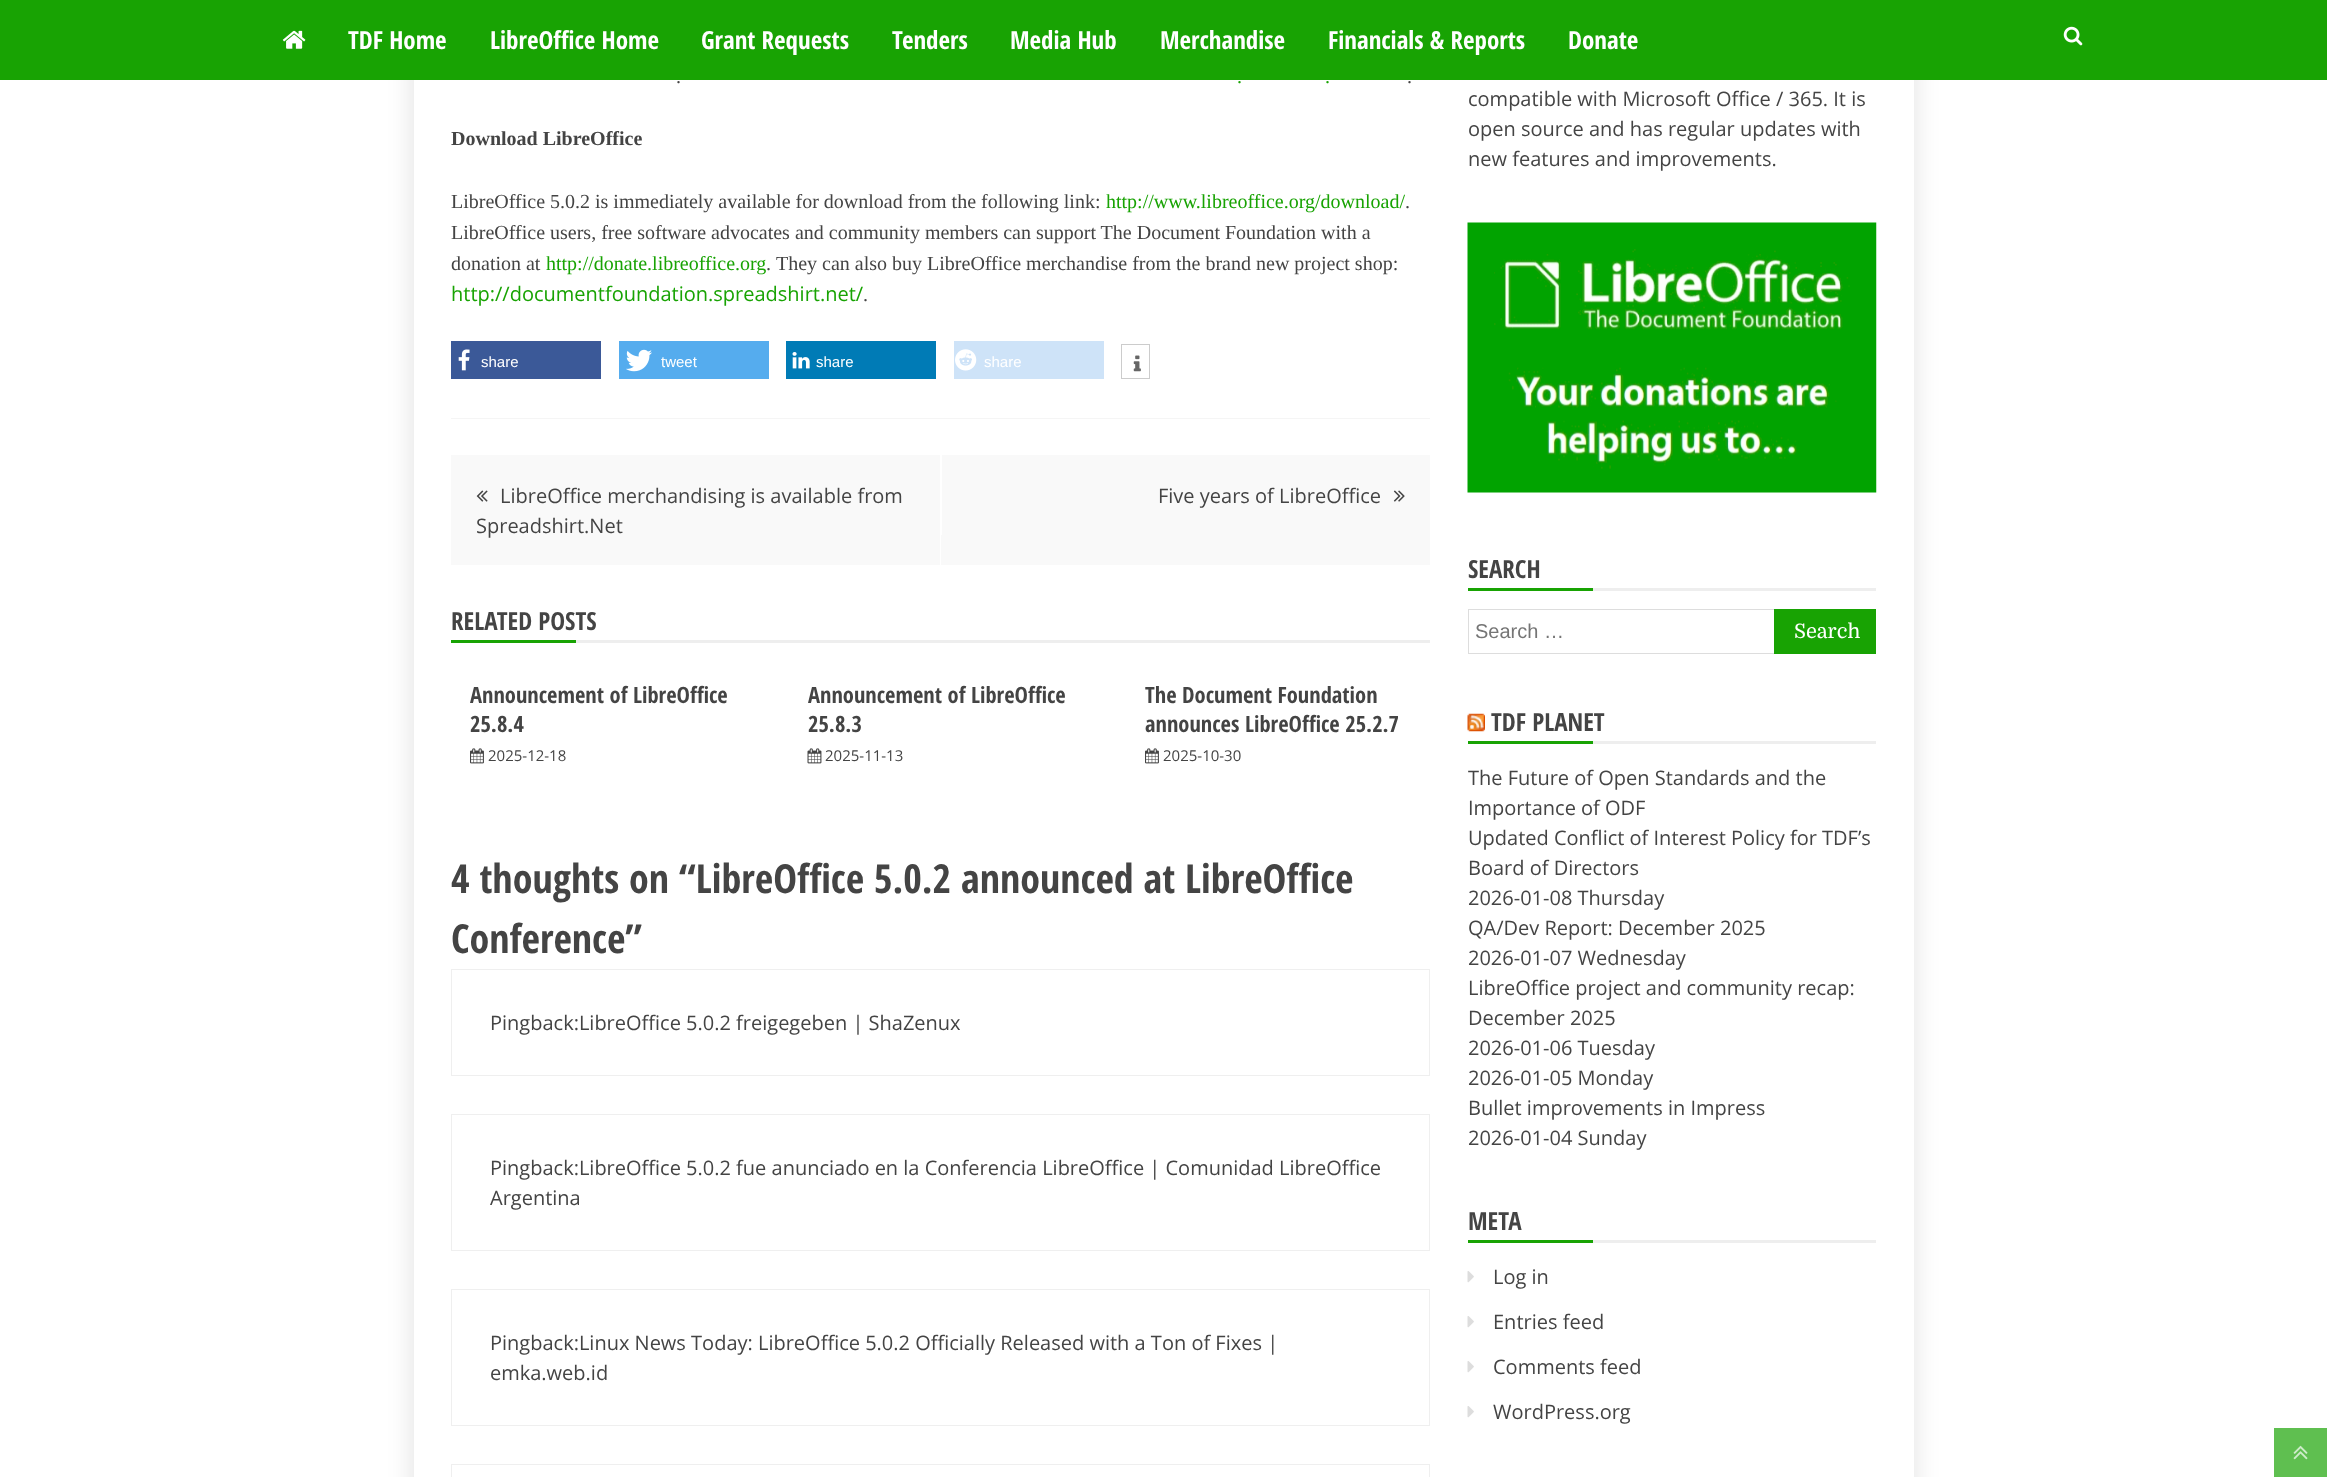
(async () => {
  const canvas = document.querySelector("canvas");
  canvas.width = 2327;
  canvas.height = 1477;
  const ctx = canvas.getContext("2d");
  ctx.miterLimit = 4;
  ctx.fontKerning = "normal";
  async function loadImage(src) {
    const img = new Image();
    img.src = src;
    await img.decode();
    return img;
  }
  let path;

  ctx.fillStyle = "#ffffff";
  ctx.fillRect(0, 0, 2327, 1477);
  ctx.fillStyle = "rgba(0, 0, 0, 0.1)";
  ctx.filter = "blur(12px)";
  ctx.beginPath();
  ctx.rect(411, -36, 1505, 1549);
  ctx.fill();
  ctx.filter = "none";
  ctx.fillStyle = "#ffffff";
  ctx.fillRect(414, 80, 1500, 1397);
  ctx.fillStyle = "#18a303";
  ctx.fillRect(0, 0, 2327, 80);
  ctx.drawImage(await loadImage("img/1.png"), 282, 30, 24, 19);
  ctx.drawImage(await loadImage("img/2.png"), 2063, 26, 20, 20);
  ctx.fillStyle = "#f5f5f5";
  path = new Path2D("M451-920V419H1430V418H451Z");
  ctx.fill(path);
  ctx.fillStyle = "#3b5998";
  ctx.fillRect(451, 341, 150, 38);
  ctx.drawImage(await loadImage("img/3.png"), 458, 349, 12, 22);
  ctx.fillStyle = "#55acee";
  ctx.fillRect(619, 341, 150, 38);
  ctx.drawImage(await loadImage("img/4.png"), 626, 349, 26, 23);
  ctx.fillStyle = "#007bb6";
  ctx.fillRect(786, 341, 150, 38);
  ctx.drawImage(await loadImage("img/5.png"), 792, 352, 18, 17);
  ctx.fillStyle = "#cee3f8";
  ctx.fillRect(954, 341, 150, 38);
  ctx.drawImage(await loadImage("img/6.png"), 955, 349, 22, 22);
  ctx.strokeStyle = "#cccccc";
  ctx.strokeRect(1121.5, 344.5, 28, 34);
  ctx.drawImage(await loadImage("img/7.png"), 1133, 355, 8, 17);
  ctx.fillStyle = "#f9f9f9";
  ctx.fillRect(451, 455, 979, 110);
  ctx.fillStyle = "#ffffff";
  ctx.fillRect(940, 455, 1, 110);
  ctx.drawImage(await loadImage("img/8.png"), 476, 490, 12, 12);
  ctx.fillRect(941, 455, 1, 80);
  ctx.drawImage(await loadImage("img/9.png"), 1393, 490, 12, 12);
  ctx.fillStyle = "#eeeeee";
  ctx.fillRect(576, 640, 854, 3);
  ctx.fillStyle = "#18a303";
  ctx.fillRect(451, 640, 125, 3);
  ctx.drawImage(await loadImage("img/10.png"), 470, 748, 14, 16);
  ctx.drawImage(await loadImage("img/11.png"), 807, 748, 15, 16);
  ctx.drawImage(await loadImage("img/10.png"), 1145, 748, 14, 16);
  ctx.strokeStyle = "#efefef";
  ctx.strokeRect(451.5, 969.5, 978, 106);
  ctx.strokeRect(451.5, 1114.5, 978, 136);
  ctx.strokeRect(451.5, 1289.5, 978, 136);
  ctx.strokeRect(451.5, 1464.5, 978, 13);
  ctx.drawImage(await loadImage("img/12.png"), 1467, 222, 410, 271);
  ctx.fillStyle = "#eeeeee";
  ctx.fillRect(1593, 588, 283, 3);
  ctx.fillStyle = "#18a303";
  ctx.fillRect(1468, 588, 125, 3);
  ctx.strokeStyle = "#dddddd";
  ctx.strokeRect(1468.5, 609.5, 407, 44);
  ctx.fillRect(1774, 609, 102, 45);
  ctx.fillStyle = "#eeeeee";
  ctx.fillRect(1593, 741, 283, 3);
  ctx.drawImage(await loadImage("img/13.png"), 1467, 713, 18, 19);
  for (const [x, y, w, h, color] of [
    [1468, 741, 125, 3, "#18a303"],
    [1593, 1240, 283, 3, "#eeeeee"],
    [1468, 1240, 125, 3, "#18a303"],
  ]) {
    ctx.fillStyle = color;
    ctx.fillRect(x, y, w, h);
  }
  ctx.drawImage(await loadImage("img/14.png"), 1467, 1271, 7, 12);
  ctx.drawImage(await loadImage("img/14.png"), 1467, 1316, 7, 12);
  ctx.drawImage(await loadImage("img/14.png"), 1467, 1361, 7, 12);
  ctx.drawImage(await loadImage("img/14.png"), 1467, 1406, 7, 12);
  ctx.fillStyle = "#5fbf50";
  ctx.fillRect(2274, 1428, 53, 49);
  ctx.drawImage(await loadImage("img/15.png"), 2293, 1445, 15, 15);
  ctx.font = "bold 25px Open Sans Condensed";
  ctx.fillStyle = "#ffffff";
  for (const [text, x, y] of [
    ["TDF Home", 348, 49],
    ["LibreOffice Home", 490, 49],
    ["Grant Requests", 701, 49],
    ["Tenders", 892, 49],
    ["Media Hub", 1010, 49],
    ["Merchandise", 1160, 49],
    ["Financials & Reports", 1328, 49],
    ["Donate", 1568, 49],
  ]) {
    ctx.fillText(text, x, y);
  }
  ctx.font = "20px Liberation Serif";
  ctx.fillStyle = "#444444";
  ctx.fillText(".", 676, 83);
  ctx.fillStyle = "#18a303";
  ctx.fillText(".", 1237, 83);
  ctx.fillText(".", 1325, 83);
  ctx.fillStyle = "#444444";
  ctx.fillText(".", 1407, 83);
  ctx.font = "bold 20px Liberation Serif";
  ctx.fillText("Download LibreOffice", 451, 145);
  ctx.font = "20px Liberation Serif";
  ctx.fillText("LibreOffice 5.0.2 is immediately available for download from the following link:", 451, 208);
  ctx.fillStyle = "#18a303";
  ctx.fillText("http://www.libreoffice.org/download/", 1106, 208);
  ctx.fillStyle = "#444444";
  for (const [text, x, y] of [
    [".", 1405, 208],
    ["LibreOffice users, free software advocates and community members can support The Document Foundation with a", 451, 239],
    ["donation at", 451, 270],
  ]) {
    ctx.fillText(text, x, y);
  }
  ctx.fillStyle = "#18a303";
  ctx.fillText("http://donate.libreoffice.org", 546, 270);
  ctx.fillStyle = "#444444";
  ctx.fillText(".", 766, 270);
  ctx.fillText("They can also buy LibreOffice merchandise from the brand new project shop:", 776, 270);
  ctx.font = "20px Open Sans";
  ctx.fillStyle = "#18a303";
  ctx.fillText("http://documentfoundation.spreadshirt.net/", 451, 301);
  ctx.font = "20px Liberation Serif";
  ctx.fillStyle = "#444444";
  ctx.fillText(".", 863, 301);
  ctx.font = "15px Liberation Sans";
  ctx.fillStyle = "#ffffff";
  for (const [text, x, y] of [
    ["share", 481, 367],
    ["tweet", 661, 367],
    ["share", 816, 367],
    ["share", 984, 367],
  ]) {
    ctx.fillText(text, x, y);
  }
  ctx.font = "20px Open Sans";
  ctx.fillStyle = "#444444";
  for (const [text, x, y] of [
    ["LibreOffice merchandising is available from", 500, 503],
    ["Spreadshirt.Net", 476, 533],
    ["Five years of LibreOffice", 1158, 503],
  ]) {
    ctx.fillText(text, x, y);
  }
  ctx.font = "bold 25px Open Sans Condensed";
  ctx.fillText("RELATED POSTS", 451, 630);
  ctx.font = "bold 22.5px Open Sans Condensed";
  ctx.fillText("Announcement of LibreOffice", 470, 703);
  ctx.fillText("25.8.4", 470, 732);
  ctx.font = "15px Open Sans";
  ctx.fillText("2025-12-18", 488, 761);
  ctx.font = "bold 22.5px Open Sans Condensed";
  ctx.fillText("Announcement of LibreOffice", 808, 703);
  ctx.fillText("25.8.3", 808, 732);
  ctx.font = "15px Open Sans";
  ctx.fillText("2025-11-13", 825, 761);
  ctx.font = "bold 22.5px Open Sans Condensed";
  ctx.fillText("The Document Foundation", 1145, 703);
  ctx.fillText("announces LibreOffice 25.2.7", 1145, 732);
  ctx.font = "15px Open Sans";
  ctx.fillText("2025-10-30", 1163, 761);
  ctx.font = "bold 40px Open Sans Condensed";
  ctx.fillText("4 thoughts on “LibreOffice 5.0.2 announced at LibreOffice", 451, 893);
  ctx.fillText("Conference”", 451, 953);
  ctx.font = "20px Open Sans";
  for (const [text, x, y] of [
    ["Pingback:LibreOffice 5.0.2 freigegeben | ShaZenux", 490, 1030],
    ["Pingback:LibreOffice 5.0.2 fue anunciado en la Conferencia LibreOffice | Comunidad LibreOffice", 490, 1175],
    ["Argentina", 490, 1205],
    ["Pingback:Linux News Today: LibreOffice 5.0.2 Officially Released with a Ton of Fixes |", 490, 1350],
    ["emka.web.id", 490, 1380],
    ["compatible with Microsoft Office / 365. It is", 1468, 106],
    ["open source and has regular updates with", 1468, 136],
    ["new features and improvements.", 1468, 166],
  ]) {
    ctx.fillText(text, x, y);
  }
  ctx.font = "bold 25px Open Sans Condensed";
  ctx.fillText("SEARCH", 1468, 578);
  ctx.font = "20px Liberation Sans";
  ctx.fillStyle = "#757575";
  ctx.fillText("Search …", 1475, 638);
  ctx.font = "20px Domine";
  ctx.fillStyle = "#ffffff";
  ctx.fillText("Search", 1794, 638);
  ctx.font = "bold 25px Open Sans Condensed";
  ctx.fillStyle = "#444444";
  ctx.fillText("TDF PLANET", 1491, 731);
  ctx.font = "20px Open Sans";
  for (const [text, x, y] of [
    ["The Future of Open Standards and the", 1468, 785],
    ["Importance of ODF", 1468, 815],
    ["Updated Conflict of Interest Policy for TDF’s", 1468, 845],
    ["Board of Directors", 1468, 875],
    ["2026-01-08 Thursday", 1468, 905],
    ["QA/Dev Report: December 2025", 1468, 935],
    ["2026-01-07 Wednesday", 1468, 965],
    ["LibreOffice project and community recap:", 1468, 995],
    ["December 2025", 1468, 1025],
    ["2026-01-06 Tuesday", 1468, 1055],
    ["2026-01-05 Monday", 1468, 1085],
    ["Bullet improvements in Impress", 1468, 1115],
    ["2026-01-04 Sunday", 1468, 1145],
  ]) {
    ctx.fillText(text, x, y);
  }
  ctx.font = "bold 25px Open Sans Condensed";
  ctx.fillText("META", 1468, 1230);
  ctx.font = "20px Open Sans";
  for (const [text, x, y] of [
    ["Log in", 1493, 1284],
    ["Entries feed", 1493, 1329],
    ["Comments feed", 1493, 1374],
    ["WordPress.org", 1493, 1419],
  ]) {
    ctx.fillText(text, x, y);
  }
})();
